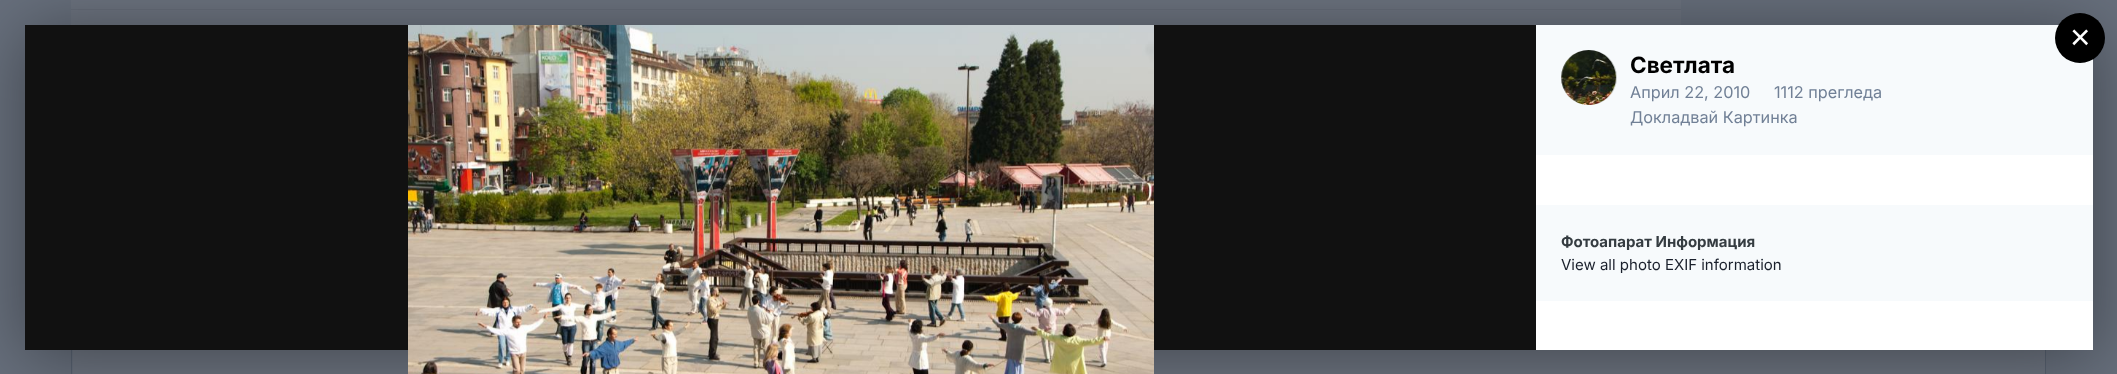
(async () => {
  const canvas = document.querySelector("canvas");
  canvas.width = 2117;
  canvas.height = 374;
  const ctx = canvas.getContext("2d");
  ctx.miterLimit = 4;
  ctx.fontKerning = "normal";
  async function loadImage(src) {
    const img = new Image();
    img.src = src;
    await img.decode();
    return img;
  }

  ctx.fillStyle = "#676f7c";
  ctx.fillRect(0, 0, 2117, 374);
  for (const [x, y, w, h, color] of [
    [71, 0, 1610, 25, "#6c737f"],
    [71, 9, 1610, 1, "#666d79"],
    [73, 350, 1972, 24, "#6c737f"],
  ]) {
    ctx.fillStyle = color;
    ctx.fillRect(x, y, w, h);
  }
  ctx.strokeStyle = "rgba(65, 77, 95, 0.4)";
  ctx.strokeRect(71.5, 345.5, 1974, 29);
  ctx.fillStyle = "rgba(0, 0, 0, 0.4)";
  ctx.filter = "blur(34.5px)";
  ctx.beginPath();
  ctx.rect(25, 31, 2068, 325);
  ctx.fill();
  ctx.filter = "none";
  ctx.fillStyle = "#f7fafc";
  ctx.fillRect(1536, 25, 557, 130);
  ctx.fillStyle = "#000000";
  ctx.beginPath();
  ctx.arc(2080, 38, 25, 0, Math.PI * 2);
  ctx.fill();
  ctx.fillStyle = "#111111";
  ctx.fillRect(25, 25, 1511, 325);
  ctx.drawImage(await loadImage("img/1.png"), 408, 25, 746, 349);
  ctx.fillStyle = "#ffffff";
  ctx.fillRect(1536, 155, 557, 195);
  ctx.beginPath();
  ctx.arc(1588.5, 77.5, 27.5, 0, Math.PI * 2);
  ctx.fill();
  ctx.drawImage(await loadImage("img/2.png"), 1561, 50, 56, 55);
  ctx.fillStyle = "#f7fafc";
  ctx.fillRect(1536, 205, 557, 96);
  ctx.font = "35px Liberation Sans";
  ctx.fillStyle = "#ffffff";
  ctx.fillText("×", 2070, 49);
  ctx.font = "bold 22.5px Inter";
  ctx.fillStyle = "#000000";
  ctx.fillText("Светлата", 1630, 73);
  ctx.font = "16.25px Inter";
  ctx.fillStyle = "#718096";
  for (const [text, x, y] of [
    ["Април 22, 2010", 1630, 98],
    ["1112 прегледа", 1774, 98],
    ["Докладвай Картинка", 1630, 123],
  ]) {
    ctx.fillText(text, x, y);
  }
  ctx.font = "bold 15px Inter";
  ctx.fillStyle = "#353c41";
  ctx.fillText("Фотоапарат Информация", 1561, 247);
  ctx.font = "15px Inter";
  ctx.fillStyle = "#1a202c";
  ctx.fillText("View all photo EXIF information", 1561, 270);
})();
